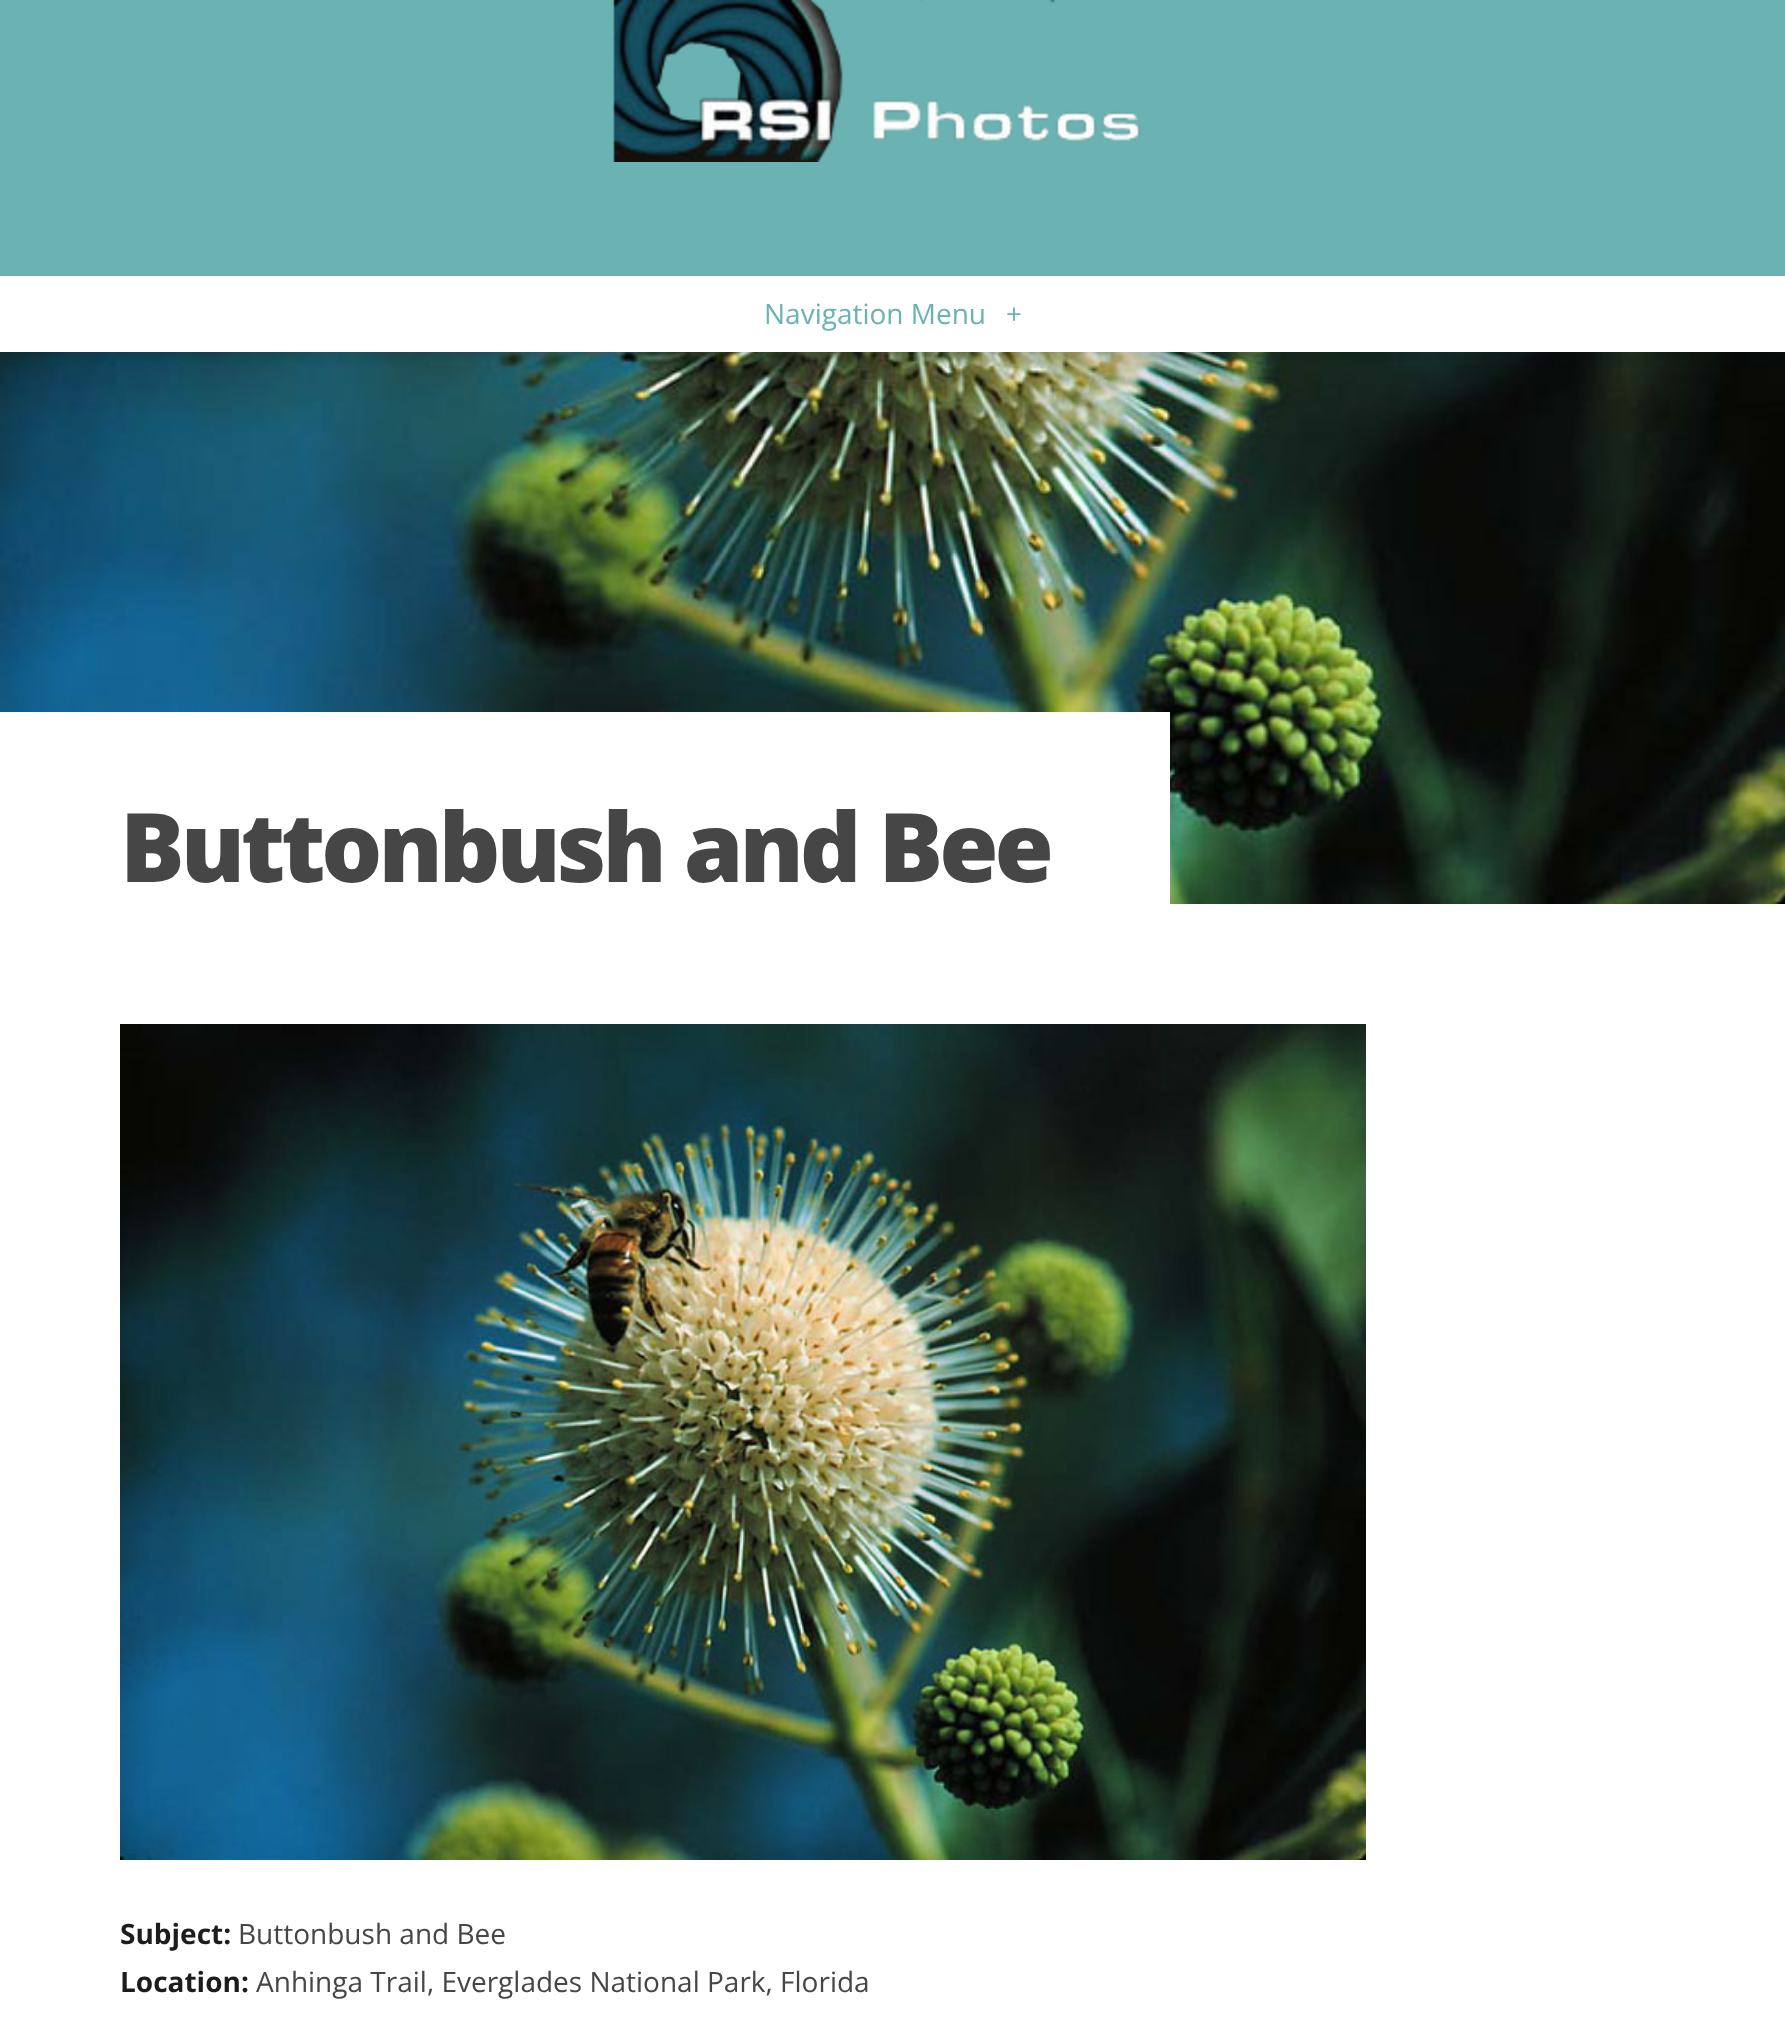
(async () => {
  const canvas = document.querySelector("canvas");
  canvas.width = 1785;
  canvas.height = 2017;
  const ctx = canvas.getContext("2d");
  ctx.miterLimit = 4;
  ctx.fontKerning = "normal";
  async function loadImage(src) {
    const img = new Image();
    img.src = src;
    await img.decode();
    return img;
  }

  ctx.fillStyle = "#ffffff";
  ctx.fillRect(0, 0, 1785, 2017);
  ctx.drawImage(await loadImage("img/2.png"), 0, 352, 1785, 552);
  ctx.fillStyle = "rgba(0, 0, 0, 0.08)";
  ctx.filter = "blur(4px)";
  ctx.beginPath();
  ctx.rect(0, 8, 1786, 352);
  ctx.fill();
  ctx.filter = "none";
  ctx.fillStyle = "#6ab3b2";
  ctx.fillRect(0, 0, 1785, 276);
  ctx.drawImage(await loadImage("img/1.png"), 613, 0, 528, 162);
  ctx.fillStyle = "#ffffff";
  ctx.fillRect(0, 276, 1785, 76);
  ctx.fillRect(0, 712, 1170, 192);
  ctx.drawImage(await loadImage("img/3.png"), 120, 1024, 1246, 836);
  ctx.font = "28px Open Sans";
  ctx.fillStyle = "#6ab3b2";
  ctx.fillText("Navigation Menu", 764, 324);
  ctx.fillText("+", 1006, 324);
  ctx.letterSpacing = "-4px";
  ctx.font = "800 96px Open Sans";
  ctx.fillStyle = "#464646";
  ctx.fillText("Buttonbush and Bee", 120, 882);
  ctx.letterSpacing = "0px";
  ctx.font = "bold 28px Open Sans";
  ctx.fillStyle = "#1c1c1c";
  ctx.fillText("Subject:", 120, 1944);
  ctx.font = "28px Open Sans";
  ctx.fillStyle = "#464646";
  ctx.fillText("Buttonbush and Bee", 238, 1944);
  ctx.font = "bold 28px Open Sans";
  ctx.fillStyle = "#1c1c1c";
  ctx.fillText("Location:", 120, 1992);
  ctx.font = "28px Open Sans";
  ctx.fillStyle = "#464646";
  ctx.fillText("Anhinga Trail, Everglades National Park, Florida", 256, 1992);
})();
